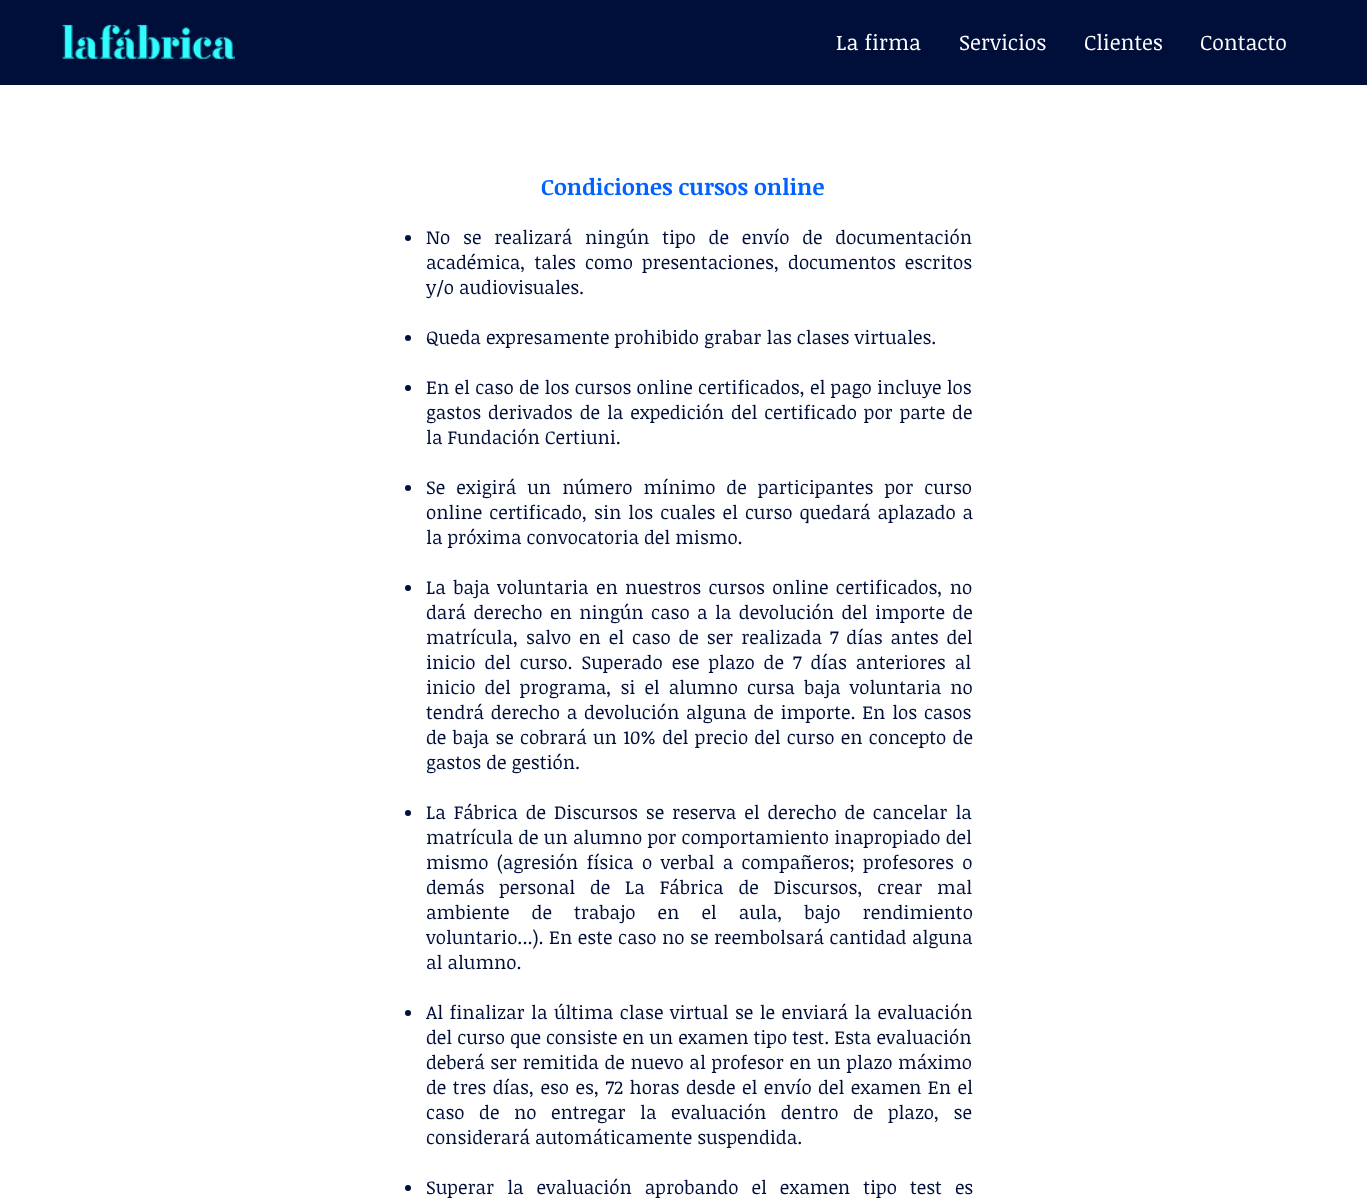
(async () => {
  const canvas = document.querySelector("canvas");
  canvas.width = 1367;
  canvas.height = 1201;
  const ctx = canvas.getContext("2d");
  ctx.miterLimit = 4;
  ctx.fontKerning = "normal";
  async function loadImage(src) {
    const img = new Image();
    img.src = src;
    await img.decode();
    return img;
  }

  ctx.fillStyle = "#ffffff";
  ctx.fillRect(0, 0, 1367, 1201);
  ctx.fillStyle = "#000e3a";
  ctx.fillRect(0, 0, 1367, 85);
  ctx.drawImage(await loadImage("img/1.png"), 62, 24, 173, 35);
  ctx.beginPath();
  ctx.arc(408, 238, 3, 0, Math.PI * 2);
  ctx.fill();
  ctx.beginPath();
  ctx.arc(408, 338, 3, 0, Math.PI * 2);
  ctx.fill();
  ctx.beginPath();
  ctx.arc(408, 388, 3, 0, Math.PI * 2);
  ctx.fill();
  ctx.beginPath();
  ctx.arc(408, 488, 3, 0, Math.PI * 2);
  ctx.fill();
  ctx.beginPath();
  ctx.arc(408, 588, 3, 0, Math.PI * 2);
  ctx.fill();
  ctx.beginPath();
  ctx.arc(408, 813, 3, 0, Math.PI * 2);
  ctx.fill();
  ctx.beginPath();
  ctx.arc(408, 1013, 3, 0, Math.PI * 2);
  ctx.fill();
  ctx.beginPath();
  ctx.arc(408, 1188, 3, 0, Math.PI * 2);
  ctx.fill();
  ctx.font = "21.25px Noticia Text";
  ctx.fillStyle = "#ffffff";
  for (const [text, x, y] of [
    ["La firma", 836, 50],
    ["Servicios", 959, 50],
    ["Clientes", 1084, 50],
    ["Contacto", 1200, 50],
  ]) {
    ctx.fillText(text, x, y);
  }
  ctx.font = "bold 22.5px Noticia Text";
  ctx.fillStyle = "#0062ff";
  ctx.fillText("Condiciones cursos online", 541, 195);
  ctx.wordSpacing = "7.75px";
  ctx.font = "18.75px Noticia Text";
  ctx.fillStyle = "#000e3a";
  ctx.fillText("No se realizará ningún tipo de envío de documentación", 426, 244);
  ctx.wordSpacing = "4px";
  ctx.fillText("académica, tales como presentaciones, documentos escritos", 426, 269);
  ctx.wordSpacing = "0px";
  ctx.fillText("y/o audiovisuales.", 426, 294);
  ctx.fillText("Queda expresamente prohibido grabar las clases virtuales.", 426, 344);
  ctx.wordSpacing = "0.25px";
  ctx.fillText("En el caso de los cursos online certificados, el pago incluye los", 426, 394);
  ctx.wordSpacing = "1.9px";
  ctx.fillText("gastos derivados de la expedición del certificado por parte de", 426, 419);
  ctx.wordSpacing = "0px";
  ctx.fillText("la Fundación Certiuni.", 426, 444);
  ctx.wordSpacing = "6px";
  ctx.fillText("Se exigirá un número mínimo de participantes por curso", 426, 494);
  ctx.wordSpacing = "2px";
  ctx.fillText("online certificado, sin los cuales el curso quedará aplazado a", 426, 519);
  ctx.wordSpacing = "0px";
  ctx.fillText("la próxima convocatoria del mismo.", 426, 544);
  ctx.wordSpacing = "2.25px";
  ctx.fillText("La baja voluntaria en nuestros cursos online certificados, no", 426, 594);
  ctx.wordSpacing = "2.4px";
  ctx.fillText("dará derecho en ningún caso a la devolución del importe de", 426, 619);
  ctx.wordSpacing = "2.9px";
  ctx.fillText("matrícula, salvo en el caso de ser realizada 7 días antes del", 426, 644);
  ctx.wordSpacing = "4px";
  ctx.fillText("inicio del curso. Superado ese plazo de 7 días anteriores al", 426, 669);
  ctx.fillText("inicio del programa, si el alumno cursa baja voluntaria no", 426, 694);
  ctx.wordSpacing = "1.75px";
  ctx.fillText("tendrá derecho a devolución alguna de importe. En los casos", 426, 719);
  ctx.wordSpacing = "1.25px";
  ctx.fillText("de baja se cobrará un 10% del precio del curso en concepto de", 426, 744);
  ctx.wordSpacing = "0px";
  ctx.fillText("gastos de gestión.", 426, 769);
  ctx.wordSpacing = "2.9px";
  ctx.fillText("La Fábrica de Discursos se reserva el derecho de cancelar la", 426, 819);
  ctx.wordSpacing = "0.25px";
  ctx.fillText("matrícula de un alumno por comportamiento inapropiado del", 426, 844);
  ctx.wordSpacing = "3.25px";
  ctx.fillText("mismo (agresión física o verbal a compañeros; profesores o", 426, 869);
  ctx.wordSpacing = "9.75px";
  ctx.fillText("demás personal de La Fábrica de Discursos, crear mal", 426, 894);
  ctx.wordSpacing = "17px";
  ctx.fillText("ambiente de trabajo en el aula, bajo rendimiento", 426, 919);
  ctx.wordSpacing = "0.5px";
  ctx.fillText("voluntario...). En este caso no se reembolsará cantidad alguna", 426, 944);
  ctx.wordSpacing = "0px";
  ctx.fillText("al alumno.", 426, 969);
  ctx.wordSpacing = "1.4px";
  ctx.fillText("Al finalizar la última clase virtual se le enviará la evaluación", 426, 1019);
  ctx.wordSpacing = "0px";
  ctx.fillText("del curso que consiste en un examen tipo test. Esta evaluación", 426, 1044);
  ctx.wordSpacing = "0.6px";
  ctx.fillText("deberá ser remitida de nuevo al profesor en un plazo máximo", 426, 1069);
  ctx.wordSpacing = "1.5px";
  ctx.fillText("de tres días, eso es, 72 horas desde el envío del examen En el", 426, 1094);
  ctx.wordSpacing = "9.5px";
  ctx.fillText("caso de no entregar la evaluación dentro de plazo, se", 426, 1119);
  ctx.wordSpacing = "0px";
  ctx.fillText("considerará automáticamente suspendida.", 426, 1144);
  ctx.wordSpacing = "8px";
  ctx.fillText("Superar la evaluación aprobando el examen tipo test es", 426, 1194);
})();
